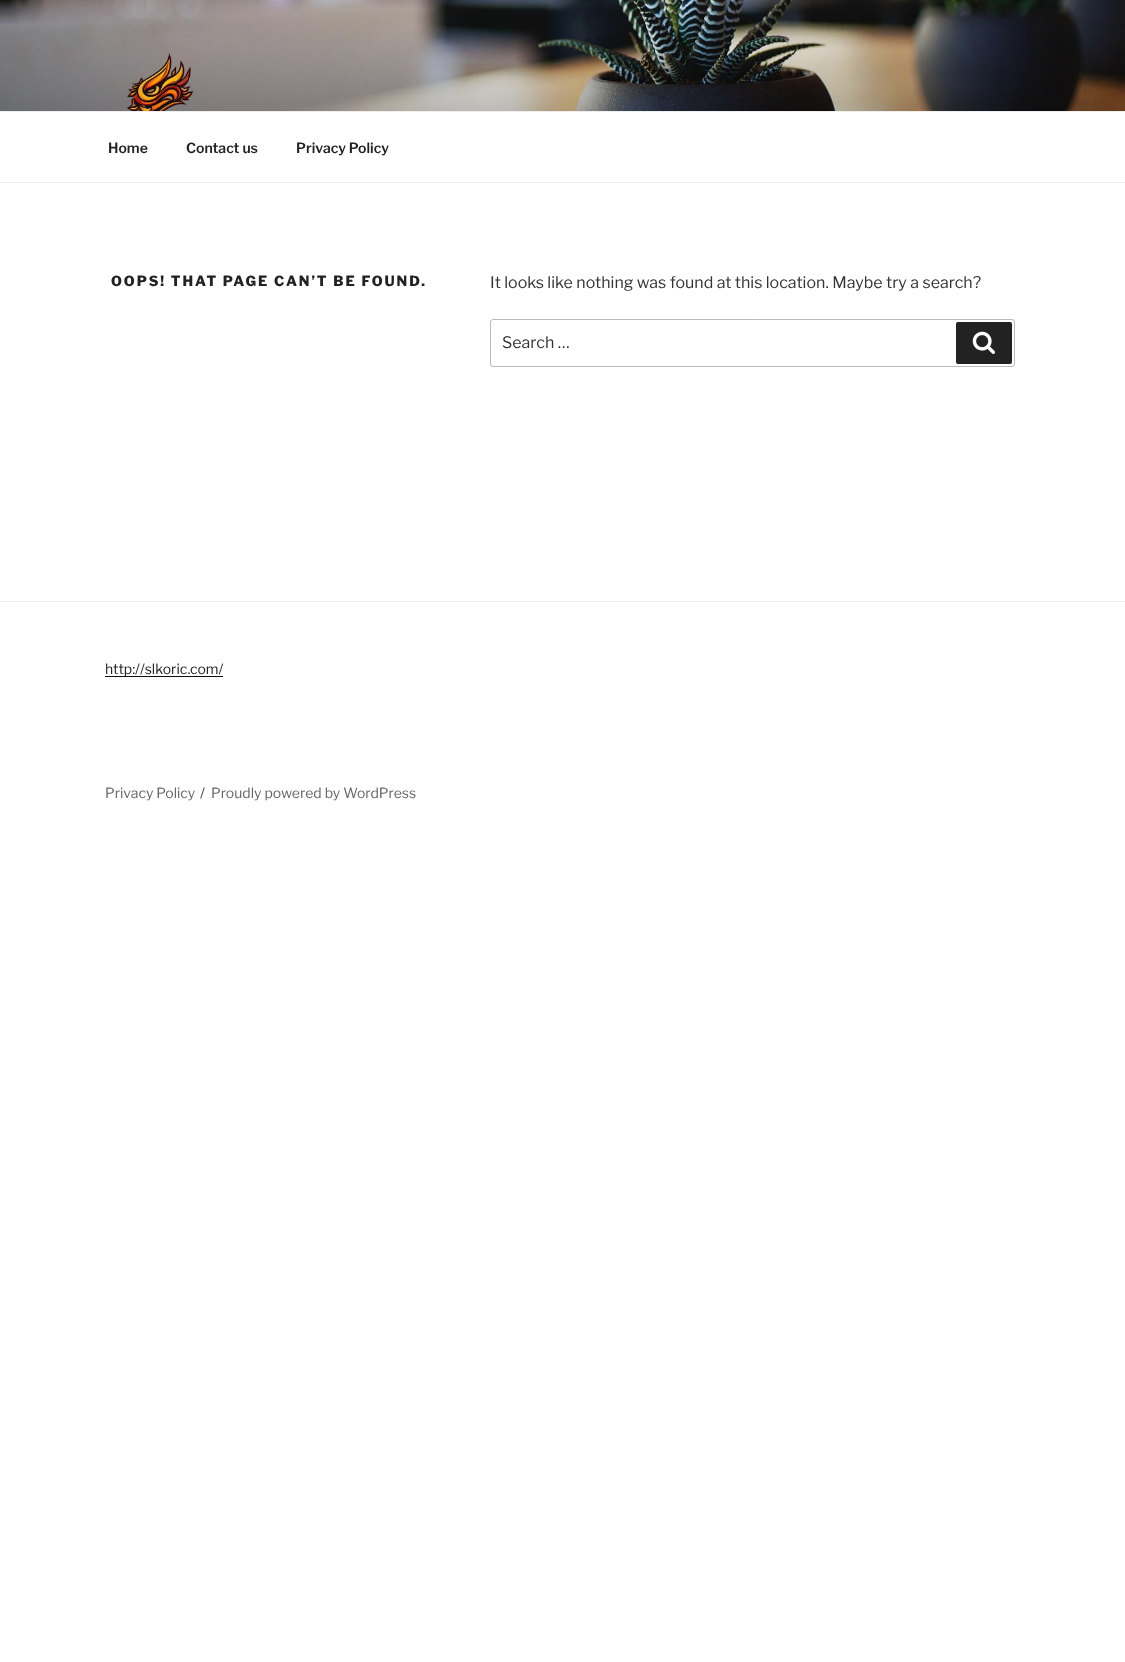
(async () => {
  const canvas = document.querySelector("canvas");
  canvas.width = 1125;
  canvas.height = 1662;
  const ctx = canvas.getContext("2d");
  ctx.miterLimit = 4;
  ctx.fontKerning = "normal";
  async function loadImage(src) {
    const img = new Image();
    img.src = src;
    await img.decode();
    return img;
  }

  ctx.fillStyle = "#ffffff";
  ctx.fillRect(0, 0, 1125, 1662);
  ctx.drawImage(await loadImage("img/1.png"), 0, 0, 1125, 111);
  ctx.drawImage(await loadImage("img/2.png"), 126, 52, 68, 59);
  ctx.fillStyle = "#eeeeee";
  ctx.fillRect(0, 111, 1125, 1);
  ctx.fillRect(0, 182, 1125, 1);
  ctx.beginPath();
  ctx.roundRect(490.5, 319.5, 524, 47, 2.5);
  ctx.strokeStyle = "#bbbbbb";
  ctx.stroke();
  ctx.fillStyle = "#222222";
  ctx.beginPath();
  ctx.roundRect(956, 322, 56, 42, 2);
  ctx.fill();
  ctx.drawImage(await loadImage("img/3.png"), 972, 331, 23, 23);
  ctx.fillStyle = "#eeeeee";
  ctx.fillRect(0, 601, 1125, 1);
  ctx.fillStyle = "#0f0f0f";
  ctx.fillRect(105, 676, 118, 1);
  ctx.font = "100 14px 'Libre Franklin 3'";
  ctx.fillStyle = "#222222";
  for (const [text, x, y] of [
    ["Home", 108, 153],
    ["Contact us", 186, 153],
    ["Privacy Policy", 296, 153],
  ]) {
    ctx.fillText(text, x, y);
  }
  ctx.letterSpacing = "1.95px";
  ctx.font = "100 14px Libre Franklin";
  ctx.fillText("OOPS! THAT PAGE CAN’T BE FOUND.", 111, 286);
  ctx.letterSpacing = "0px";
  ctx.font = "100 16px 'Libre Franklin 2'";
  ctx.fillStyle = "#333333";
  ctx.fillText("It looks like nothing was found at this location. Maybe try a search?", 490, 288);
  ctx.fillText("Search …", 502, 348);
  ctx.font = "100 14px 'Libre Franklin 2'";
  ctx.fillStyle = "#222222";
  ctx.fillText("http://slkoric.com/", 105, 674);
  ctx.fillStyle = "#666666";
  ctx.fillText("Privacy Policy", 105, 798);
  ctx.fillStyle = "#333333";
  ctx.fillText("/", 200, 798);
  ctx.fillStyle = "#666666";
  ctx.fillText("Proudly powered by WordPress", 211, 798);
})();
